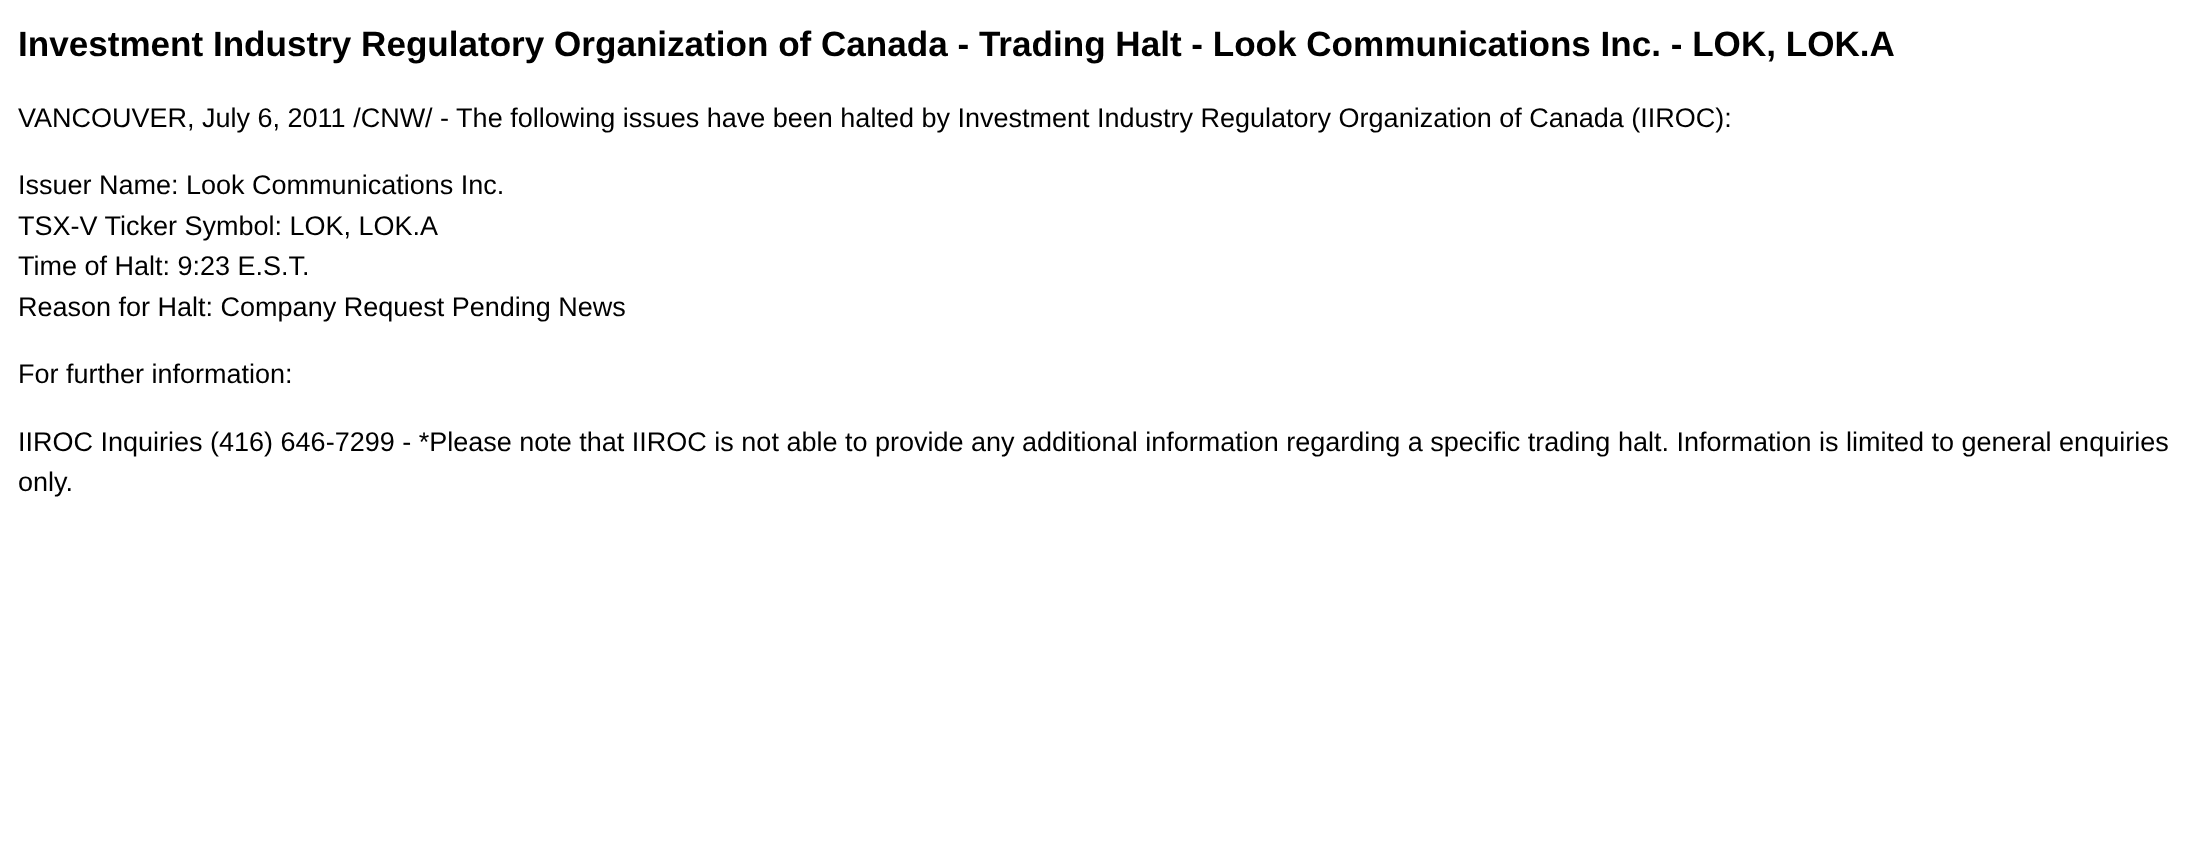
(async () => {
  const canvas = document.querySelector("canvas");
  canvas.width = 2193;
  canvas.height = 846;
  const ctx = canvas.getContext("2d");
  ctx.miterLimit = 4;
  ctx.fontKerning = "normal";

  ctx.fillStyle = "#ffffff";
  ctx.fillRect(0, 0, 2193, 846);
  ctx.font = "bold 35.1px Liberation Sans";
  ctx.fillStyle = "#000000";
  ctx.fillText("Investment Industry Regulatory Organization of Canada - Trading Halt - Look Communications Inc. - LOK, LOK.A", 18, 56);
  ctx.font = "27px Liberation Sans";
  for (const [text, x, y] of [
    ["VANCOUVER, July 6, 2011 /CNW/ - The following issues have been halted by Investment Industry Regulatory Organization of Canada (IIROC):", 18, 127],
    ["Issuer Name: Look Communications Inc.", 18, 194],
    ["TSX-V Ticker Symbol: LOK, LOK.A", 18, 235],
    ["Time of Halt: 9:23 E.S.T.", 18, 275],
    ["Reason for Halt: Company Request Pending News", 18, 316],
    ["For further information:", 18, 383],
    ["IIROC Inquiries (416) 646-7299 - *Please note that IIROC is not able to provide any additional information regarding a specific trading halt. Information is limited to general enquiries", 18, 451],
    ["only.", 18, 491],
  ]) {
    ctx.fillText(text, x, y);
  }
})();
